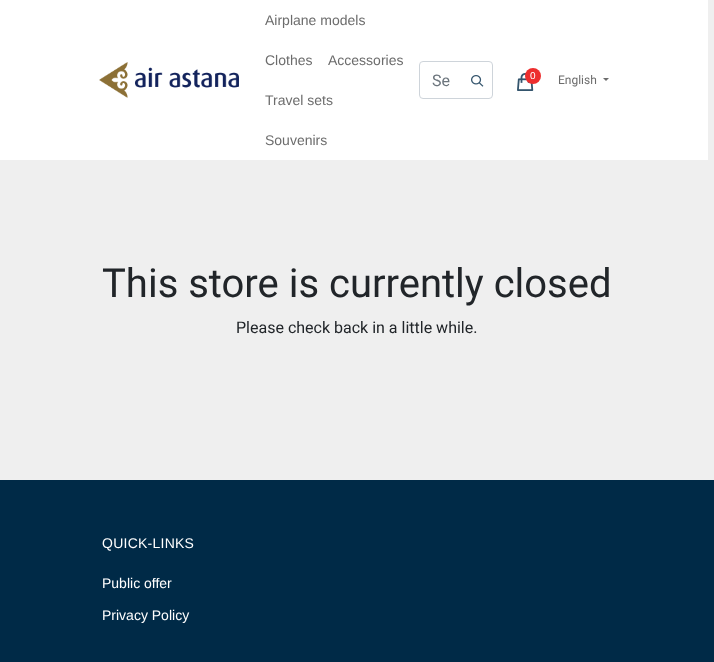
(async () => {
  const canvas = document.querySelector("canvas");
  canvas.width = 714;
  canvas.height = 662;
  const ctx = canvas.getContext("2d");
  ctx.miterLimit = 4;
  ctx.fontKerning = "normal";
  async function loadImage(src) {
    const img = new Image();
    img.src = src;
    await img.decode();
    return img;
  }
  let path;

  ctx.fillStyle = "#efefef";
  ctx.fillRect(0, 0, 714, 662);
  ctx.fillStyle = "#ffffff";
  ctx.fillRect(0, 0, 708, 160);
  ctx.drawImage(await loadImage("img/1.png"), 99, 62, 140, 36);
  ctx.beginPath();
  ctx.roundRect(419.5, 61.5, 73, 37, 3.5);
  ctx.strokeStyle = "#ced4da";
  ctx.stroke();
  ctx.drawImage(await loadImage("img/2.png"), 471, 75, 13, 12);
  ctx.drawImage(await loadImage("img/3.png"), 517, 73, 17, 18);
  ctx.fillStyle = "#ed2e2e";
  ctx.beginPath();
  ctx.arc(533, 76, 8, 0, Math.PI * 2);
  ctx.fill();
  ctx.fillStyle = "#6c6c6c";
  path = new Path2D("M603 78H609L606 81Z");
  ctx.fill(path);
  ctx.fillStyle = "#002a47";
  ctx.fillRect(0, 480, 714, 182);
  ctx.font = "14px Liberation Sans";
  ctx.fillStyle = "#6c6c6c";
  for (const [text, x, y] of [
    ["Airplane models", 265, 25],
    ["Clothes", 265, 65],
    ["Accessories", 328, 65],
    ["Travel sets", 265, 105],
    ["Souvenirs", 265, 145],
  ]) {
    ctx.fillText(text, x, y);
  }
  ctx.font = "16px Roboto";
  ctx.fillStyle = "#6c757d";
  ctx.fillText("Se", 432, 86);
  ctx.font = "10px Liberation Sans";
  ctx.fillStyle = "#ffffff";
  ctx.fillText("0", 530, 79);
  ctx.font = "12px Roboto";
  ctx.fillStyle = "#6c6c6c";
  ctx.fillText("English", 558, 84);
  ctx.font = "40px Roboto";
  ctx.fillStyle = "#212529";
  ctx.fillText("This store is currently closed", 102, 297);
  ctx.font = "16px Roboto";
  ctx.fillText("Please check back in a little while.", 236, 333);
  ctx.letterSpacing = "0.25px";
  ctx.font = "14px Liberation Sans";
  ctx.fillStyle = "#ffffff";
  ctx.fillText("QUICK-LINKS", 102, 548);
  ctx.letterSpacing = "0px";
  ctx.fillText("Public offer", 102, 588);
  ctx.fillText("Privacy Policy", 102, 620);
})();
